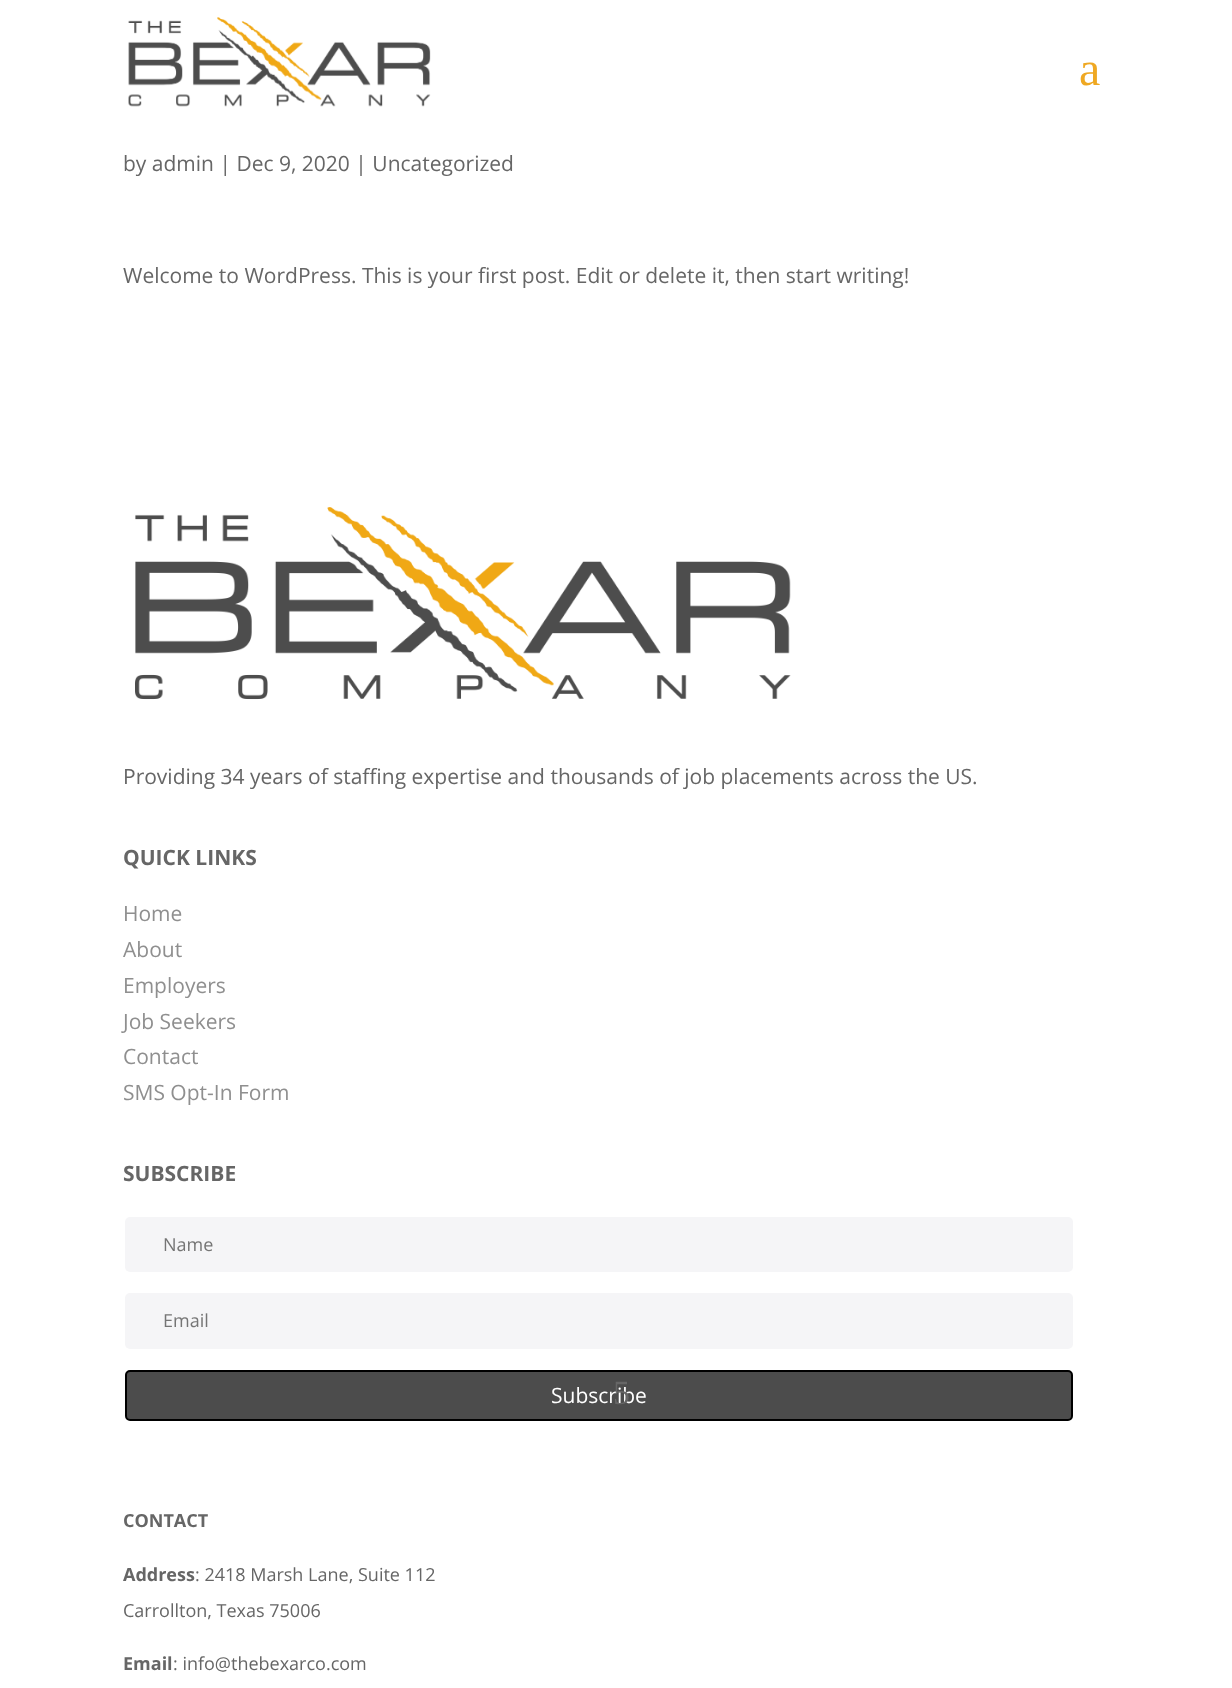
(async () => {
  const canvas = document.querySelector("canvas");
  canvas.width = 1232;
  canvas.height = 1688;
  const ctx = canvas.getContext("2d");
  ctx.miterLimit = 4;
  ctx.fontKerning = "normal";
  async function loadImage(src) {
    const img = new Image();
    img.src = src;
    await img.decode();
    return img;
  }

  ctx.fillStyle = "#ffffff";
  ctx.fillRect(0, 0, 1232, 1688);
  ctx.drawImage(await loadImage("img/1.png"), 128, 17, 303, 90);
  ctx.drawImage(await loadImage("img/2.png"), 135, 507, 656, 193);
  ctx.fillStyle = "#f5f5f7";
  ctx.beginPath();
  ctx.roundRect(125, 1217, 948, 55, 5);
  ctx.fill();
  ctx.beginPath();
  ctx.roundRect(125, 1293, 948, 56, 5);
  ctx.fill();
  ctx.fillStyle = "#4c4c4c";
  ctx.beginPath();
  ctx.roundRect(126, 1371, 946, 49, 4);
  ctx.fill();
  ctx.strokeStyle = "#000000";
  ctx.lineWidth = 2;
  ctx.stroke();
  ctx.font = "48px Liberation Serif";
  ctx.fillStyle = "#efa822";
  ctx.fillText("a", 1079, 85);
  ctx.font = "21px Open Sans";
  ctx.fillStyle = "#666666";
  for (const [text, x, y] of [
    ["by admin | Dec 9, 2020 | Uncategorized", 123, 171],
    ["Welcome to WordPress. This is your first post. Edit or delete it, then start writing!", 123, 283],
    ["Providing 34 years of staffing expertise and thousands of job placements across the US.", 123, 784],
  ]) {
    ctx.fillText(text, x, y);
  }
  ctx.font = "bold 21px Open Sans";
  ctx.fillText("QUICK LINKS", 123, 865);
  ctx.font = "21px Open Sans";
  ctx.fillStyle = "#8f8f8f";
  for (const [text, x, y] of [
    ["Home", 123, 921],
    ["About", 123, 957],
    ["Employers", 123, 993],
    ["Job Seekers", 123, 1029],
    ["Contact", 123, 1064],
    ["SMS Opt-In Form", 123, 1100],
  ]) {
    ctx.fillText(text, x, y);
  }
  ctx.font = "bold 21px Open Sans";
  ctx.fillStyle = "#666666";
  ctx.fillText("SUBSCRIBE", 123, 1181);
  ctx.font = "18px Open Sans";
  ctx.fillStyle = "#757575";
  ctx.fillText("Name", 163, 1251);
  ctx.fillText("Email", 163, 1327);
  ctx.font = "21px Open Sans";
  ctx.fillStyle = "#ffffff";
  ctx.fillText("Subscribe", 551, 1403);
  ctx.font = "34px Liberation Serif";
  ctx.fillStyle = "#666666";
  ctx.fillText("5", 613, 1404);
  ctx.font = "bold 18px Open Sans";
  ctx.fillText("CONTACT", 123, 1527);
  ctx.fillText("Address", 123, 1581);
  ctx.font = "18px Open Sans";
  ctx.fillText(": 2418 Marsh Lane, Suite 112", 195, 1581);
  ctx.fillText("Carrollton, Texas 75006", 123, 1617);
  ctx.font = "bold 18px Open Sans";
  ctx.fillText("Email", 123, 1670);
  ctx.font = "18px Open Sans";
  ctx.fillText(": info@thebexarco.com", 173, 1670);
})();
